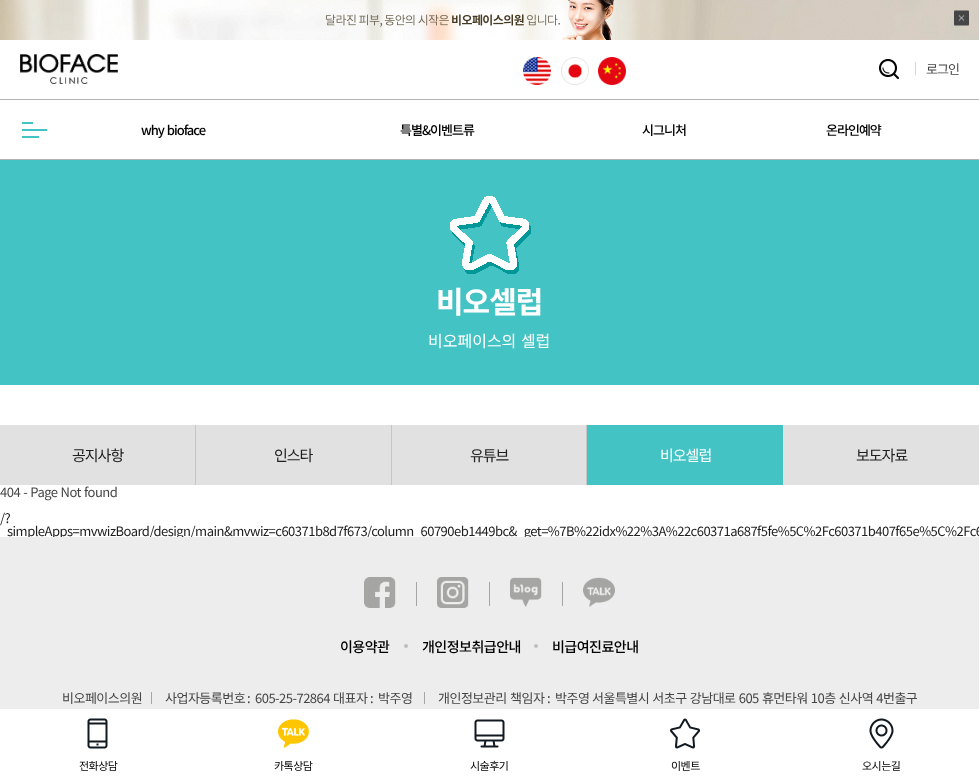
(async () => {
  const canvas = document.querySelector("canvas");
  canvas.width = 979;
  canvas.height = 779;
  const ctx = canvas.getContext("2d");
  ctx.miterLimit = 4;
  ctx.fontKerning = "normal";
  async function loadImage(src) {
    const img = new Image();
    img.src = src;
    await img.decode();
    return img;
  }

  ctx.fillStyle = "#ffffff";
  ctx.fillRect(0, 0, 979, 779);
  ctx.fillStyle = "#b2b2b2";
  ctx.fillRect(0, 99, 979, 1);
  ctx.drawImage(await loadImage("img/1.png"), 20, 54, 98, 30);
  ctx.drawImage(await loadImage("img/2.png"), 523, 57, 28, 28);
  ctx.drawImage(await loadImage("img/3.png"), 561, 57, 28, 28);
  ctx.drawImage(await loadImage("img/4.png"), 598, 57, 28, 28);
  ctx.drawImage(await loadImage("img/5.png"), 879, 59, 20, 20);
  for (const [x, y, w, h, color] of [
    [0, 159, 979, 1, "#b2b2b2"],
    [22, 122, 11, 2, "#44c3c4"],
    [22, 129, 25, 2, "#44c3c4"],
    [22, 136, 17, 2, "#44c3c4"],
  ]) {
    ctx.fillStyle = color;
    ctx.fillRect(x, y, w, h);
  }
  ctx.drawImage(await loadImage("img/6.png"), 0, 0, 979, 40);
  ctx.drawImage(await loadImage("img/7.png"), 326, 0, 288, 40);
  ctx.drawImage(await loadImage("img/8.png"), 954, 10, 15, 16);
  ctx.fillRect(0, 160, 979, 225);
  ctx.drawImage(await loadImage("img/9.png"), 450, 196, 81, 78);
  for (const [x, y, w, h, color] of [
    [0, 425, 195, 60, "#e1e1e1"],
    [195, 425, 1, 60, "#c6c6c6"],
    [196, 425, 195, 60, "#e1e1e1"],
    [391, 425, 1, 60, "#c6c6c6"],
    [392, 425, 194, 60, "#e1e1e1"],
    [586, 425, 1, 60, "#c6c6c6"],
    [587, 425, 196, 60, "#44c3c4"],
    [783, 425, 196, 60, "#e1e1e1"],
  ]) {
    ctx.fillStyle = color;
    ctx.fillRect(x, y, w, h);
  }
  ctx.drawImage(await loadImage("img/14.png"), 87, 718, 21, 31);
  ctx.drawImage(await loadImage("img/15.png"), 278, 719, 31, 29);
  ctx.drawImage(await loadImage("img/16.png"), 474, 719, 31, 29);
  ctx.drawImage(await loadImage("img/17.png"), 670, 718, 30, 31);
  ctx.drawImage(await loadImage("img/18.png"), 869, 718, 25, 31);
  ctx.letterSpacing = "-1px";
  ctx.font = "12px Noto Sans KR";
  ctx.fillStyle = "#cccccc";
  ctx.fillText("|", 914, 72);
  ctx.font = "13px Noto Sans KR";
  ctx.fillStyle = "#454545";
  ctx.fillText("로그인", 926, 74);
  ctx.wordSpacing = "1px";
  ctx.font = "500 13px Noto Sans KR";
  ctx.fillStyle = "#000000";
  ctx.fillText("why bioface", 141, 135);
  ctx.wordSpacing = "0px";
  for (const [text, x, y] of [
    ["특별&이벤트류", 400, 135],
    ["시그니처", 642, 135],
    ["온라인예약", 826, 135],
  ]) {
    ctx.fillText(text, x, y);
  }
  ctx.font = "bold 30px Noto Sans KR";
  ctx.fillStyle = "#ffffff";
  ctx.fillText("비오셀럽", 436, 313);
  ctx.letterSpacing = "0px";
  ctx.wordSpacing = "1px";
  ctx.font = "16px Noto Sans KR";
  ctx.fillText("비오페이스의 셀럽", 428, 347);
  ctx.letterSpacing = "-1px";
  ctx.wordSpacing = "0px";
  ctx.font = "15px Noto Sans KR";
  ctx.fillStyle = "#202020";
  for (const [text, x, y] of [
    ["공지사항", 72, 461],
    ["인스타", 274, 461],
    ["유튜브", 470, 461],
  ]) {
    ctx.fillText(text, x, y);
  }
  ctx.fillStyle = "#ffffff";
  ctx.fillText("비오셀럽", 660, 461);
  ctx.fillStyle = "#202020";
  ctx.fillText("보도자료", 856, 461);
  ctx.letterSpacing = "-0.52px";
  ctx.wordSpacing = "0.75px";
  ctx.font = "13px Noto Sans KR";
  ctx.fillStyle = "#454545";
  ctx.fillText("404 - Page Not found", 0, 497);
  ctx.wordSpacing = "0px";
  ctx.fillStyle = "#202020";
  ctx.fillText("/?", 0, 523);
  ctx.fillText("simpleApps=mvwizBoard/design/main&mvwiz=c60371b8d7f673/column_60790eb1449bc&_get=%7B%22idx%22%3A%22c60371a687f5fe%5C%2Fc60371b407f65e%5C%2Fc6", 7, 536);
  ctx.fillStyle = "#ededed";
  ctx.fillRect(0, 537, 979, 172);
  ctx.drawImage(await loadImage("img/10.png"), 364, 577, 32, 31);
  ctx.fillStyle = "#a5a5a4";
  ctx.fillRect(416, 582, 1, 24);
  ctx.drawImage(await loadImage("img/11.png"), 437, 577, 32, 31);
  ctx.fillRect(489, 582, 1, 24);
  ctx.drawImage(await loadImage("img/12.png"), 510, 577, 32, 30);
  ctx.fillRect(562, 582, 1, 24);
  ctx.drawImage(await loadImage("img/13.png"), 583, 577, 32, 30);
  ctx.font = "500 14px Noto Sans KR";
  ctx.fillStyle = "#000000";
  ctx.fillText("이용약관", 340, 652);
  ctx.fillStyle = "#bebebe";
  ctx.beginPath();
  ctx.arc(406, 646, 2, 0, Math.PI * 2);
  ctx.fill();
  ctx.fillStyle = "#000000";
  ctx.fillText("개인정보취급안내", 422, 652);
  ctx.fillStyle = "#bebebe";
  ctx.beginPath();
  ctx.arc(536, 646, 2, 0, Math.PI * 2);
  ctx.fill();
  ctx.fillStyle = "#000000";
  ctx.fillText("비급여진료안내", 552, 652);
  ctx.font = "13px Noto Sans KR";
  ctx.fillStyle = "#454545";
  ctx.fillText("비오페이스의원", 62, 703);
  ctx.fillStyle = "#a6a6a6";
  ctx.fillRect(151, 692, 1, 12);
  ctx.fillStyle = "#454545";
  for (const [text, x, y] of [
    ["사업자등록번호", 165, 703],
    [":", 247, 703],
    ["605-25-72864", 255, 703],
    ["대표자", 333, 703],
    [":", 370, 703],
    ["박주영", 378, 703],
  ]) {
    ctx.fillText(text, x, y);
  }
  ctx.fillStyle = "#a6a6a6";
  ctx.fillRect(424, 692, 1, 12);
  ctx.wordSpacing = "1px";
  ctx.fillStyle = "#454545";
  ctx.fillText("개인정보관리 책임자", 438, 703);
  ctx.wordSpacing = "0px";
  ctx.fillText(":", 547, 703);
  ctx.fillText("박주영", 555, 703);
  ctx.wordSpacing = "0.75px";
  ctx.fillText("서울특별시 서초구 강남대로 605 휴먼타워 10층 신사역 4번출구", 592, 703);
  ctx.wordSpacing = "0px";
  ctx.font = "11px Noto Sans KR";
  ctx.fillStyle = "#000000";
  for (const [text, x, y] of [
    ["전화상담", 79, 770],
    ["카톡상담", 274, 770],
    ["시술후기", 470, 770],
    ["이벤트", 671, 770],
    ["오시는길", 862, 770],
  ]) {
    ctx.fillText(text, x, y);
  }
})();
